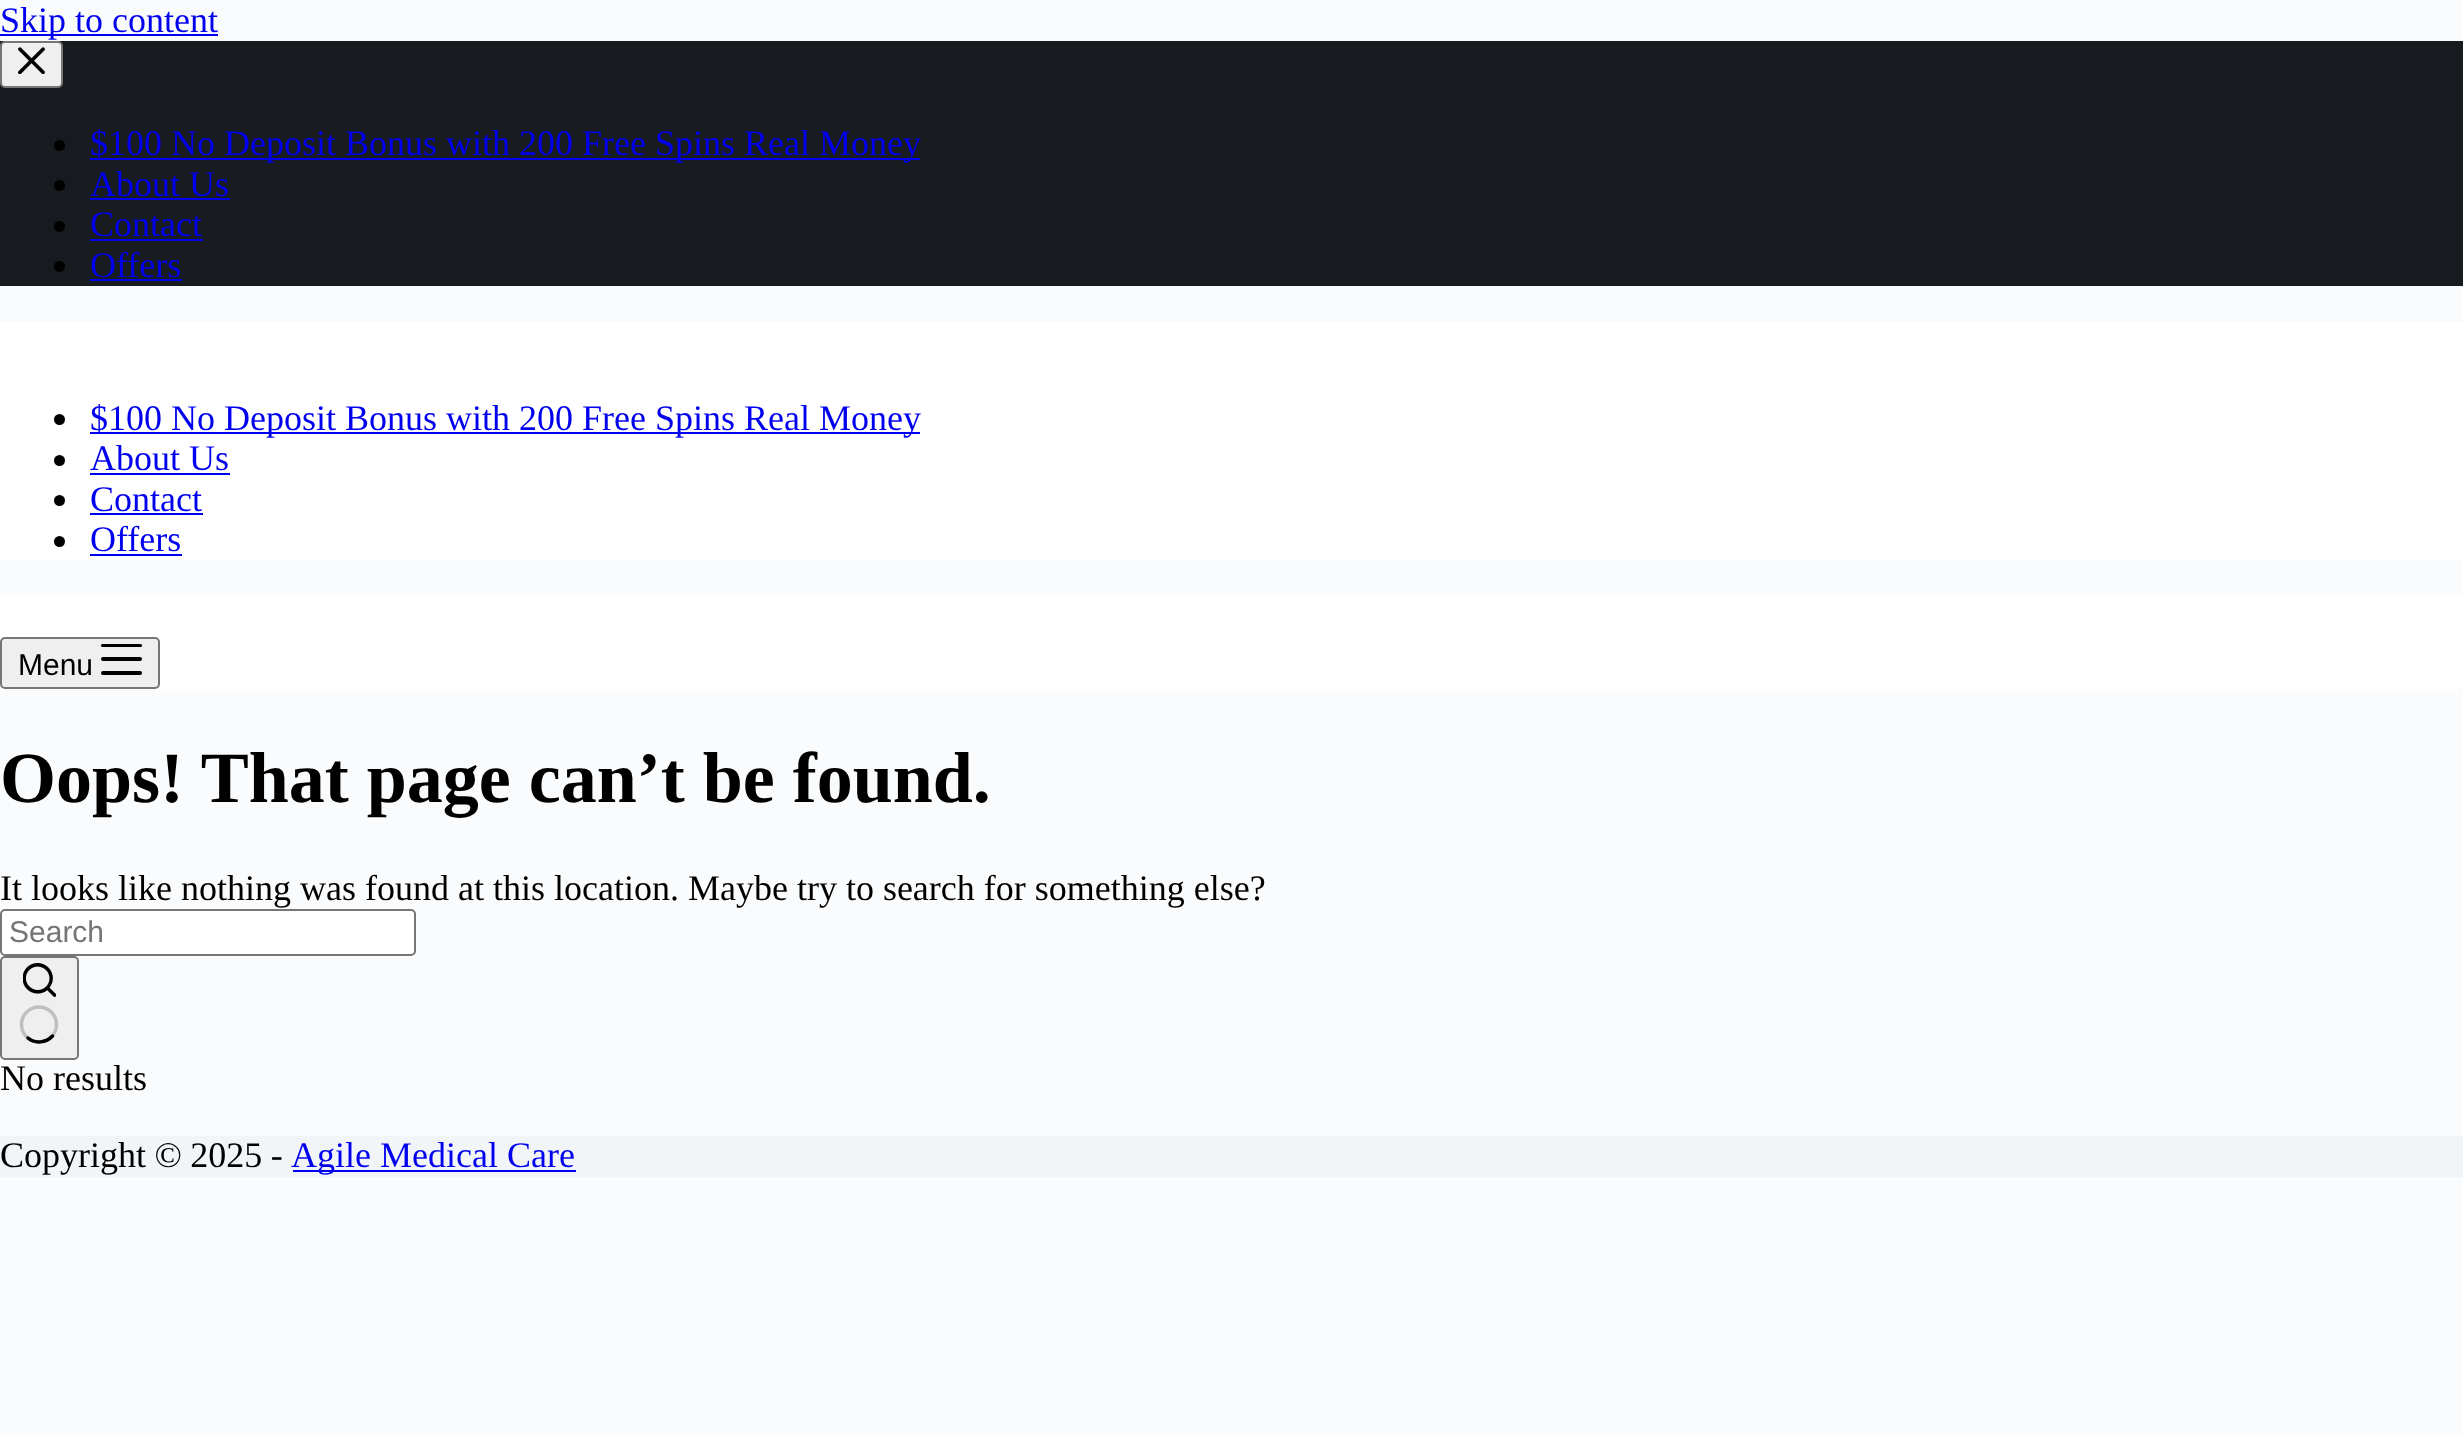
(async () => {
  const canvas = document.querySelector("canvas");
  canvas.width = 2463;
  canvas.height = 1435;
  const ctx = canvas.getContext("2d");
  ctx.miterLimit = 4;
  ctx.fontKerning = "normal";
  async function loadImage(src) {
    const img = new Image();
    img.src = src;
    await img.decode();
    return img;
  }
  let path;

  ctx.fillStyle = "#fafbfc";
  ctx.fillRect(0, 0, 2463, 1435);
  ctx.fillStyle = "#0000ee";
  ctx.fillRect(0, 34, 218, 2);
  ctx.fillStyle = "#171a1e";
  ctx.fillRect(0, 41, 2463, 245);
  ctx.fillStyle = "#efefef";
  ctx.beginPath();
  ctx.roundRect(1, 42, 61, 45, 4);
  ctx.fill();
  ctx.strokeStyle = "#767676";
  ctx.lineWidth = 2;
  ctx.stroke();
  ctx.drawImage(await loadImage("img/1.png"), 18, 47, 27, 27);
  ctx.fillStyle = "#000000";
  ctx.beginPath();
  ctx.arc(59.5, 145.5, 5.5, 0, Math.PI * 2);
  ctx.fill();
  ctx.fillStyle = "#0000ee";
  ctx.fillRect(90, 158, 830, 2);
  ctx.fillStyle = "#000000";
  ctx.beginPath();
  ctx.arc(59.5, 185.5, 5.5, 0, Math.PI * 2);
  ctx.fill();
  ctx.fillStyle = "#0000ee";
  ctx.fillRect(90, 198, 140, 2);
  ctx.fillStyle = "#000000";
  ctx.beginPath();
  ctx.arc(59.5, 226.5, 5.5, 0, Math.PI * 2);
  ctx.fill();
  ctx.fillStyle = "#0000ee";
  ctx.fillRect(90, 239, 113, 2);
  ctx.fillStyle = "#000000";
  ctx.beginPath();
  ctx.arc(59.5, 266.5, 5.5, 0, Math.PI * 2);
  ctx.fill();
  ctx.fillStyle = "#0000ee";
  ctx.fillRect(90, 279, 92, 2);
  ctx.fillStyle = "#ffffff";
  ctx.fillRect(0, 322, 2463, 238);
  ctx.fillStyle = "#000000";
  ctx.beginPath();
  ctx.arc(59.5, 419.5, 5.5, 0, Math.PI * 2);
  ctx.fill();
  ctx.fillStyle = "#0000ee";
  ctx.fillRect(90, 432, 830, 2);
  ctx.fillStyle = "#000000";
  ctx.beginPath();
  ctx.arc(59.5, 460.5, 5.5, 0, Math.PI * 2);
  ctx.fill();
  ctx.fillStyle = "#0000ee";
  ctx.fillRect(90, 473, 140, 2);
  ctx.fillStyle = "#000000";
  ctx.beginPath();
  ctx.arc(59.5, 500.5, 5.5, 0, Math.PI * 2);
  ctx.fill();
  ctx.fillStyle = "#0000ee";
  ctx.fillRect(90, 513, 113, 2);
  ctx.fillStyle = "#000000";
  ctx.beginPath();
  ctx.arc(59.5, 541.5, 5.5, 0, Math.PI * 2);
  ctx.fill();
  ctx.fillStyle = "#0000ee";
  ctx.fillRect(90, 554, 92, 2);
  ctx.fillStyle = "#ffffff";
  ctx.fillRect(0, 596, 2463, 93);
  ctx.fillStyle = "#efefef";
  ctx.beginPath();
  ctx.roundRect(1, 638, 158, 50, 4);
  ctx.fill();
  ctx.stroke();
  ctx.fillStyle = "#000000";
  ctx.beginPath();
  ctx.roundRect(101, 644, 41, 3, 1.5);
  ctx.fill();
  ctx.beginPath();
  ctx.roundRect(101, 657, 41, 4, 2);
  ctx.fill();
  ctx.beginPath();
  ctx.roundRect(101, 671, 41, 4, 2);
  ctx.fill();
  ctx.fillStyle = "#ffffff";
  ctx.beginPath();
  ctx.roundRect(1, 910, 414, 45, 4);
  ctx.fill();
  ctx.stroke();
  ctx.fillStyle = "#efefef";
  ctx.beginPath();
  ctx.roundRect(1, 957, 77, 102, 4);
  ctx.fill();
  ctx.stroke();
  ctx.drawImage(await loadImage("img/2.png"), 23, 963, 33, 34);
  ctx.beginPath();
  ctx.arc(39, 1024.5, 17.5, 0, Math.PI * 2);
  ctx.strokeStyle = "#bfbfbf";
  ctx.lineWidth = 3.5;
  ctx.stroke();
  path = new Path2D("M52.5 1036C46 1043 35 1044 28 1038");
  ctx.strokeStyle = "#000000";
  ctx.lineCap = "round";
  ctx.stroke(path);
  ctx.fillStyle = "#f2f5f7";
  ctx.fillRect(0, 1136, 2463, 41);
  ctx.fillStyle = "#0000ee";
  ctx.fillRect(293, 1170, 283, 2);
  ctx.font = "36px Liberation Serif";
  for (const [text, x, y] of [
    ["Skip to content", 0, 32],
    ["$100 No Deposit Bonus with 200 Free Spins Real Money", 90, 155],
    ["About Us", 90, 196],
    ["Contact", 90, 236],
    ["Offers", 90, 277],
    ["$100 No Deposit Bonus with 200 Free Spins Real Money", 90, 430],
    ["About Us", 90, 470],
    ["Contact", 90, 511],
    ["Offers", 90, 551],
  ]) {
    ctx.fillText(text, x, y);
  }
  ctx.font = "30px Liberation Sans";
  ctx.fillStyle = "#000000";
  ctx.fillText("Menu", 18, 675);
  ctx.font = "bold 72px Liberation Serif";
  ctx.fillText("Oops! That page can’t be found.", 0, 802);
  ctx.font = "36px Liberation Serif";
  ctx.fillText("It looks like nothing was found at this location. Maybe try to search for something else?", 0, 900);
  ctx.font = "30px Liberation Sans";
  ctx.fillStyle = "#757575";
  ctx.fillText("Search", 9, 942);
  ctx.font = "36px Liberation Serif";
  ctx.fillStyle = "#000000";
  ctx.fillText("No results", 0, 1090);
  ctx.wordSpacing = "-0.5px";
  ctx.fillText("Copyright © 2025 -", 0, 1167);
  ctx.wordSpacing = "0px";
  ctx.fillStyle = "#0000ee";
  ctx.fillText("Agile Medical Care", 291, 1167);
})();
